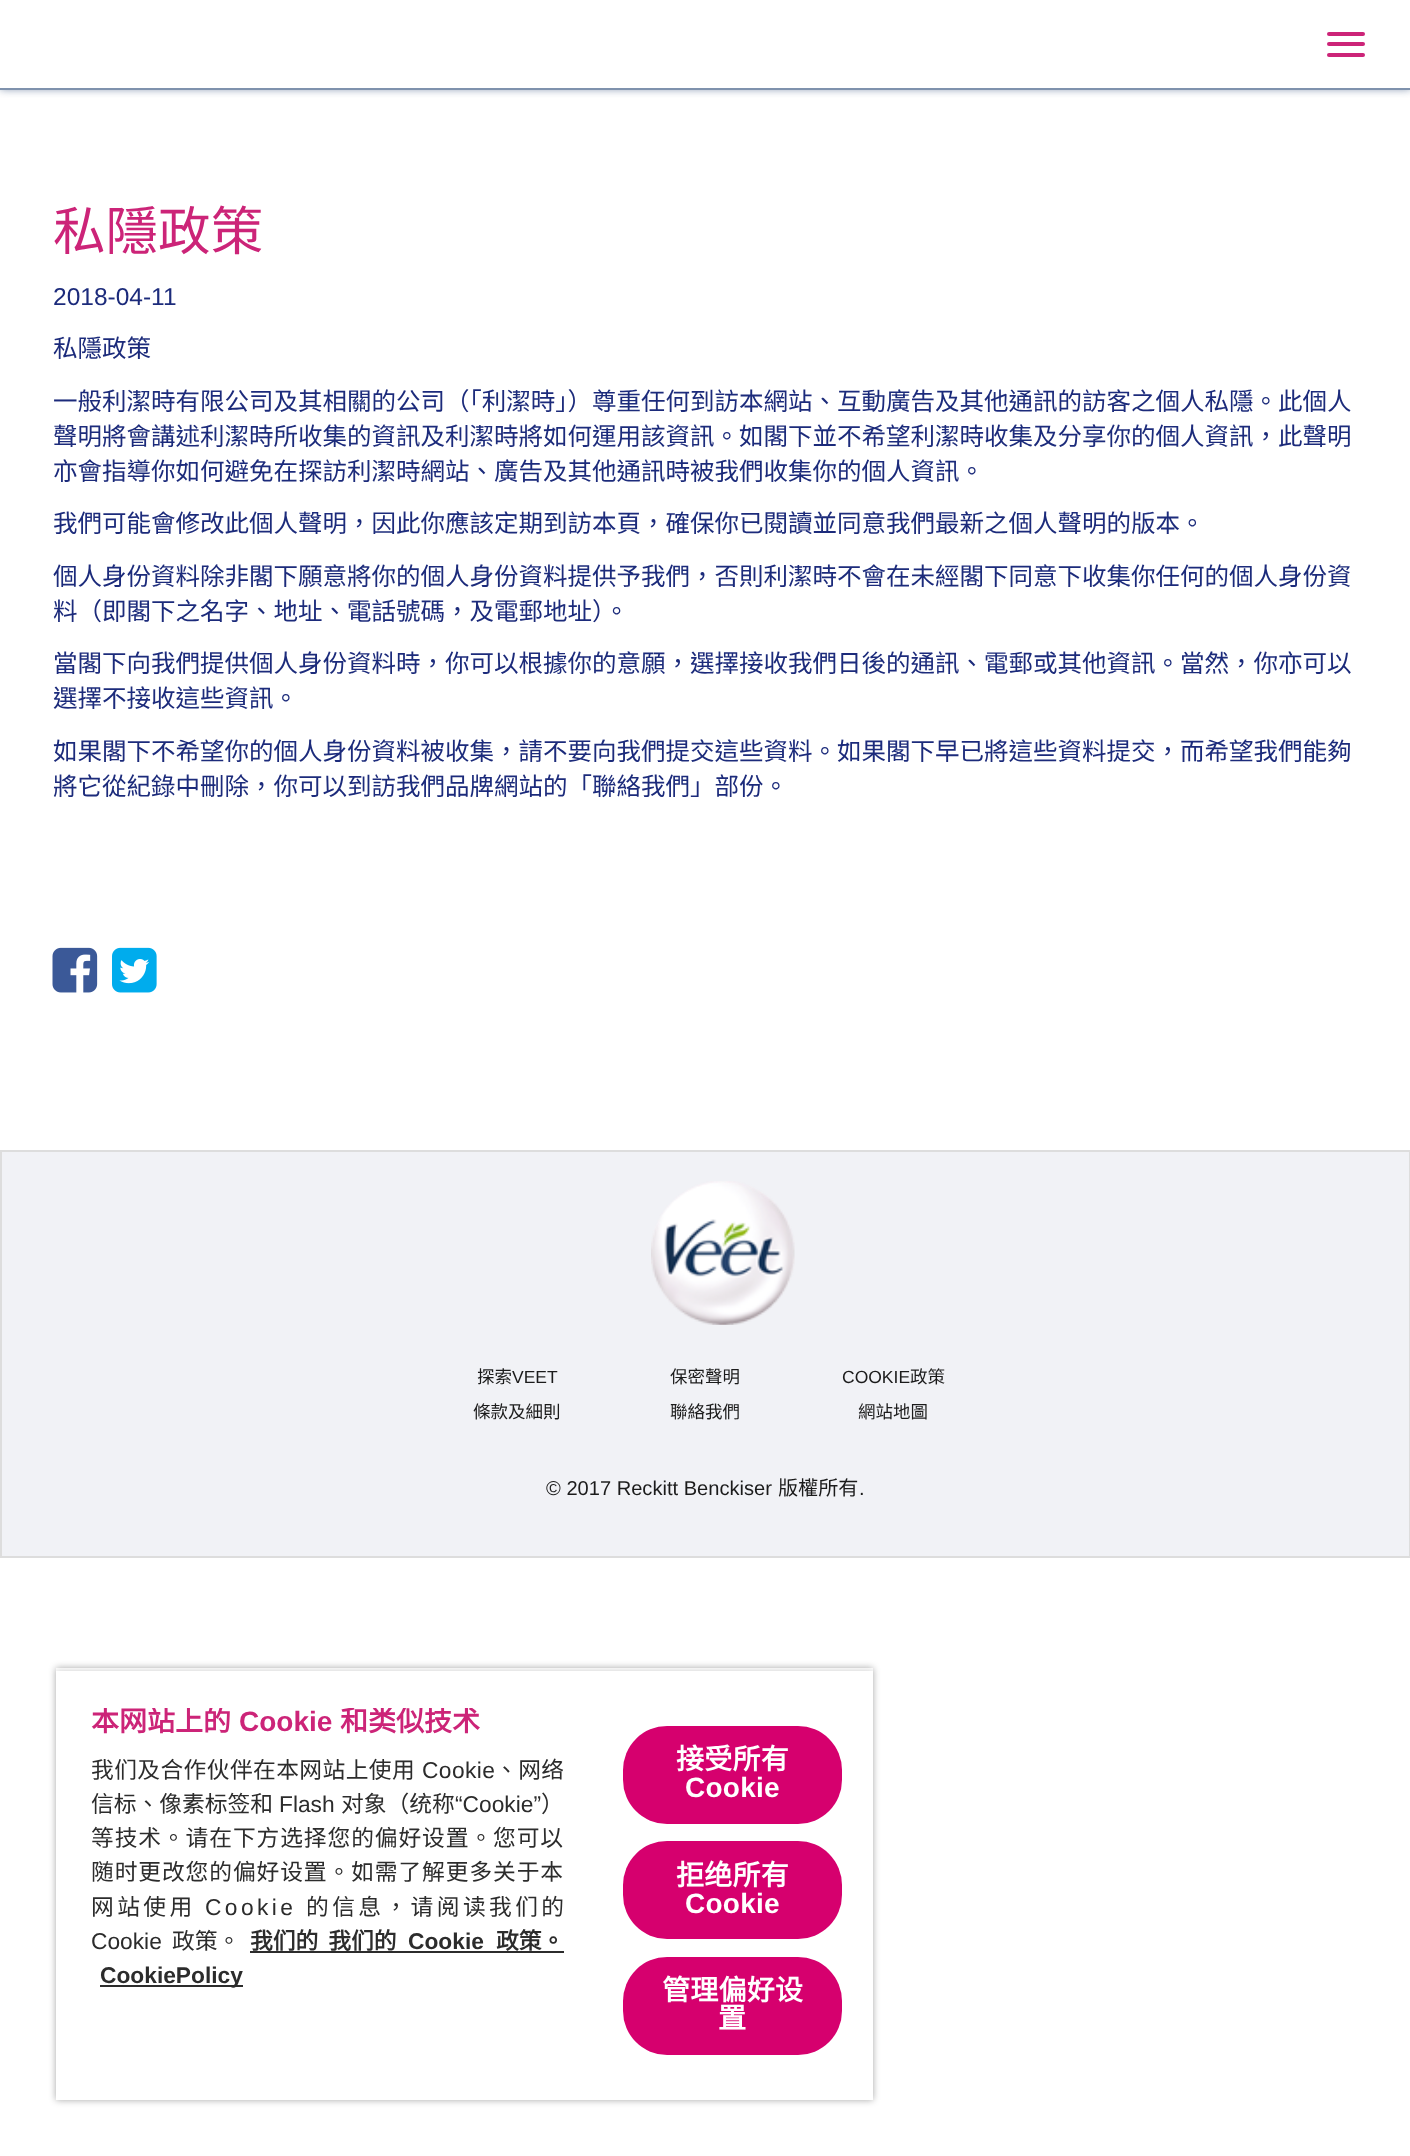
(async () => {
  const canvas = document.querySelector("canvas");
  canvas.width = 1410;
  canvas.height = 2156;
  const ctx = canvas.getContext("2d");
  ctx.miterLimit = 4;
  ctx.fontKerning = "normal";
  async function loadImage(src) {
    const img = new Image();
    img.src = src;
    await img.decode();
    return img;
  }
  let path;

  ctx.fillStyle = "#ffffff";
  ctx.fillRect(0, 0, 1410, 2156);
  ctx.save();
  ctx.beginPath();
  ctx.rect(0, 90, 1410, 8);
  ctx.clip();
  ctx.fillStyle = "#7f92ad";
  ctx.filter = "blur(4.5px)";
  ctx.beginPath();
  ctx.rect(0, 0, 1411, 89);
  ctx.fill();
  ctx.filter = "none";
  ctx.restore();
  ctx.fillStyle = "#7f92ad";
  ctx.fillRect(0, 88, 1410, 2);
  ctx.fillStyle = "#cc2478";
  ctx.beginPath();
  ctx.roundRect(1327, 32, 38, 4, 2);
  ctx.fill();
  ctx.beginPath();
  ctx.roundRect(1327, 42, 38, 4, 2);
  ctx.fill();
  ctx.beginPath();
  ctx.roundRect(1327, 53, 38, 4, 2);
  ctx.fill();
  ctx.drawImage(await loadImage("img/1.png"), 52, 947, 46, 46);
  ctx.drawImage(await loadImage("img/2.png"), 112, 947, 45, 46);
  ctx.fillStyle = "#f1f2f6";
  ctx.beginPath();
  ctx.rect(1, 1151, 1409, 406);
  ctx.fill();
  ctx.strokeStyle = "#dddddd";
  ctx.lineWidth = 2;
  ctx.stroke();
  ctx.drawImage(await loadImage("img/3.png"), 651, 1181, 144, 144);
  ctx.save();
  path = new Path2D("M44 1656H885V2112H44ZM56 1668H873V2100H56Z");
  ctx.clip(path, "evenodd");
  ctx.fillStyle = "rgba(0, 0, 0, 0.35)";
  ctx.filter = "blur(3.5px)";
  ctx.beginPath();
  ctx.rect(56, 1668, 817, 432);
  ctx.fill();
  ctx.filter = "none";
  ctx.restore();
  ctx.save();
  ctx.beginPath();
  ctx.rect(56, 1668, 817, 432);
  ctx.clip();
  ctx.fillStyle = "rgba(0, 0, 0, 0.2)";
  ctx.filter = "blur(3.5px)";
  ctx.beginPath();
  ctx.rect(56, 1671, 817, 429);
  ctx.fill();
  ctx.filter = "none";
  ctx.restore();
  for (const [x, y, w, h, color] of [
    [56, 1671, 817, 429, "#ffffff"],
    [250, 1951, 314, 2, "#2c2c2c"],
    [100, 1985, 143, 2, "#2c2c2c"],
  ]) {
    ctx.fillStyle = color;
    ctx.fillRect(x, y, w, h);
  }
  ctx.fillStyle = "#d6006e";
  ctx.beginPath();
  ctx.roundRect(623, 1726, 219, 98, 44);
  ctx.fill();
  ctx.beginPath();
  ctx.roundRect(623, 1841, 219, 98, 44);
  ctx.fill();
  ctx.beginPath();
  ctx.roundRect(623, 1957, 219, 98, 44);
  ctx.fill();
  ctx.font = "52.5px Noto Sans CJK HK";
  ctx.fillStyle = "#cc2478";
  ctx.fillText("私隱政策", 53, 250);
  ctx.font = "24.5px Liberation Sans";
  ctx.fillStyle = "#1c2b7b";
  ctx.fillText("2018-04-11", 53, 305);
  ctx.font = "24.5px Noto Sans CJK HK";
  for (const [text, x, y] of [
    ["私隱政策", 53, 357],
    ["一般利潔時有限公司及其相關的公司（「利潔時」）尊重任何到訪本網站、互動廣告及其他通訊的訪客之個人私隱。此個人", 53, 410],
    ["聲明將會講述利潔時所收集的資訊及利潔時將如何運用該資訊。如閣下並不希望利潔時收集及分享你的個人資訊，此聲明", 53, 445],
    ["亦會指導你如何避免在探訪利潔時網站、廣告及其他通訊時被我們收集你的個人資訊。", 53, 480],
    ["我們可能會修改此個人聲明，因此你應該定期到訪本頁，確保你已閱讀並同意我們最新之個人聲明的版本。", 53, 532],
    ["個人身份資料除非閣下願意將你的個人身份資料提供予我們，否則利潔時不會在未經閣下同意下收集你任何的個人身份資", 53, 585],
    ["料（即閣下之名字、地址、電話號碼，及電郵地址）。", 53, 620],
    ["當閣下向我們提供個人身份資料時，你可以根據你的意願，選擇接收我們日後的通訊、電郵或其他資訊。當然，你亦可以", 53, 672],
    ["選擇不接收這些資訊。", 53, 707],
    ["如果閣下不希望你的個人身份資料被收集，請不要向我們提交這些資料。如果閣下早已將這些資料提交，而希望我們能夠", 53, 760],
    ["將它從紀錄中刪除，你可以到訪我們品牌網站的「聯絡我們」部份。", 53, 795],
  ]) {
    ctx.fillText(text, x, y);
  }
  ctx.font = "17.5px Noto Sans CJK HK";
  ctx.fillStyle = "#1b1b1b";
  ctx.fillText("探索", 477, 1383);
  ctx.font = "17.5px Liberation Sans";
  ctx.fillText("VEET", 512, 1383);
  ctx.font = "17.5px Noto Sans CJK HK";
  ctx.fillText("保密聲明", 670, 1383);
  ctx.font = "17.5px Liberation Sans";
  ctx.fillText("COOKIE", 842, 1383);
  ctx.font = "17.5px Noto Sans CJK HK";
  for (const [text, x, y] of [
    ["政策", 910, 1383],
    ["條款及細則", 473, 1418],
    ["聯絡我們", 670, 1418],
    ["網站地圖", 858, 1418],
  ]) {
    ctx.fillText(text, x, y);
  }
  ctx.font = "20.1px Liberation Sans";
  ctx.fillText("© 2017 Reckitt Benckiser", 546, 1495);
  ctx.font = "20.1px Noto Sans CJK HK";
  ctx.fillText("版權所有", 778, 1495);
  ctx.font = "20.1px Liberation Sans";
  ctx.fillText(".", 859, 1495);
  ctx.save();
  ctx.beginPath();
  ctx.rect(91, 1708, 473, 285);
  ctx.clip();
  ctx.font = "bold 28px Noto Sans CJK HK";
  ctx.fillStyle = "#cc2478";
  ctx.fillText("本网站上的", 91, 1731);
  ctx.restore();
  ctx.font = "bold 28px Liberation Sans";
  ctx.fillStyle = "#cc2478";
  ctx.fillText("Cookie", 239, 1731);
  ctx.save();
  ctx.beginPath();
  ctx.rect(91, 1708, 473, 285);
  ctx.clip();
  ctx.font = "bold 28px Noto Sans CJK HK";
  ctx.fillText("和类似技术", 340, 1731);
  ctx.restore();
  ctx.letterSpacing = "0.4px";
  ctx.font = "22.75px Noto Sans CJK HK";
  ctx.fillStyle = "#2c2c2c";
  ctx.fillText("我们及合作伙伴在本网站上使用", 91, 1778);
  ctx.font = "22.75px Liberation Sans";
  ctx.fillText("Cookie", 422, 1778);
  ctx.font = "22.75px Noto Sans CJK HK";
  ctx.fillText("、网络", 495, 1778);
  ctx.letterSpacing = "0px";
  ctx.fillText("信标、像素标签和", 91, 1812);
  ctx.font = "22.75px Liberation Sans";
  ctx.fillText("Flash", 279, 1812);
  ctx.font = "22.75px Noto Sans CJK HK";
  ctx.fillText("对象（统称", 341, 1812);
  ctx.font = "22.75px Liberation Sans";
  ctx.fillText("“Cookie”", 455, 1812);
  ctx.font = "22.75px Noto Sans CJK HK";
  ctx.fillText("）", 541, 1812);
  ctx.letterSpacing = "0.9px";
  ctx.fillText("等技术。请在下方选择您的偏好设置。您可以", 91, 1846);
  ctx.fillText("随时更改您的偏好设置。如需了解更多关于本", 91, 1880);
  ctx.letterSpacing = "3.4px";
  ctx.fillText("网站使用", 91, 1915);
  ctx.font = "22.75px Liberation Sans";
  ctx.fillText("Cookie", 205, 1915);
  ctx.font = "22.75px Noto Sans CJK HK";
  ctx.fillText("的信息，请阅读我们的", 306, 1915);
  ctx.letterSpacing = "0px";
  ctx.font = "22.75px Liberation Sans";
  ctx.fillText("Cookie", 91, 1949);
  ctx.font = "22.75px Noto Sans CJK HK";
  ctx.fillText("政策。", 172, 1949);
  ctx.wordSpacing = "5px";
  ctx.font = "bold 22.75px Noto Sans CJK HK";
  ctx.fillText("我们的 我们的", 250, 1949);
  ctx.wordSpacing = "0px";
  ctx.font = "bold 22.75px Liberation Sans";
  ctx.fillText("Cookie", 408, 1949);
  ctx.font = "bold 22.75px Noto Sans CJK HK";
  ctx.fillText("政策。", 496, 1949);
  ctx.font = "bold 22.75px Liberation Sans";
  ctx.fillText("CookiePolicy", 100, 1983);
  ctx.letterSpacing = "0.25px";
  ctx.font = "bold 28px Noto Sans CJK HK";
  ctx.fillStyle = "#ffffff";
  ctx.fillText("接受所有", 676, 1769);
  ctx.font = "bold 28px Liberation Sans";
  ctx.fillText("Cookie", 685, 1797);
  ctx.font = "bold 28px Noto Sans CJK HK";
  ctx.fillText("拒绝所有", 676, 1885);
  ctx.font = "bold 28px Liberation Sans";
  ctx.fillText("Cookie", 685, 1913);
  ctx.font = "bold 28px Noto Sans CJK HK";
  ctx.fillText("管理偏好设", 662, 2000);
  ctx.fillText("置", 718, 2028);
})();
